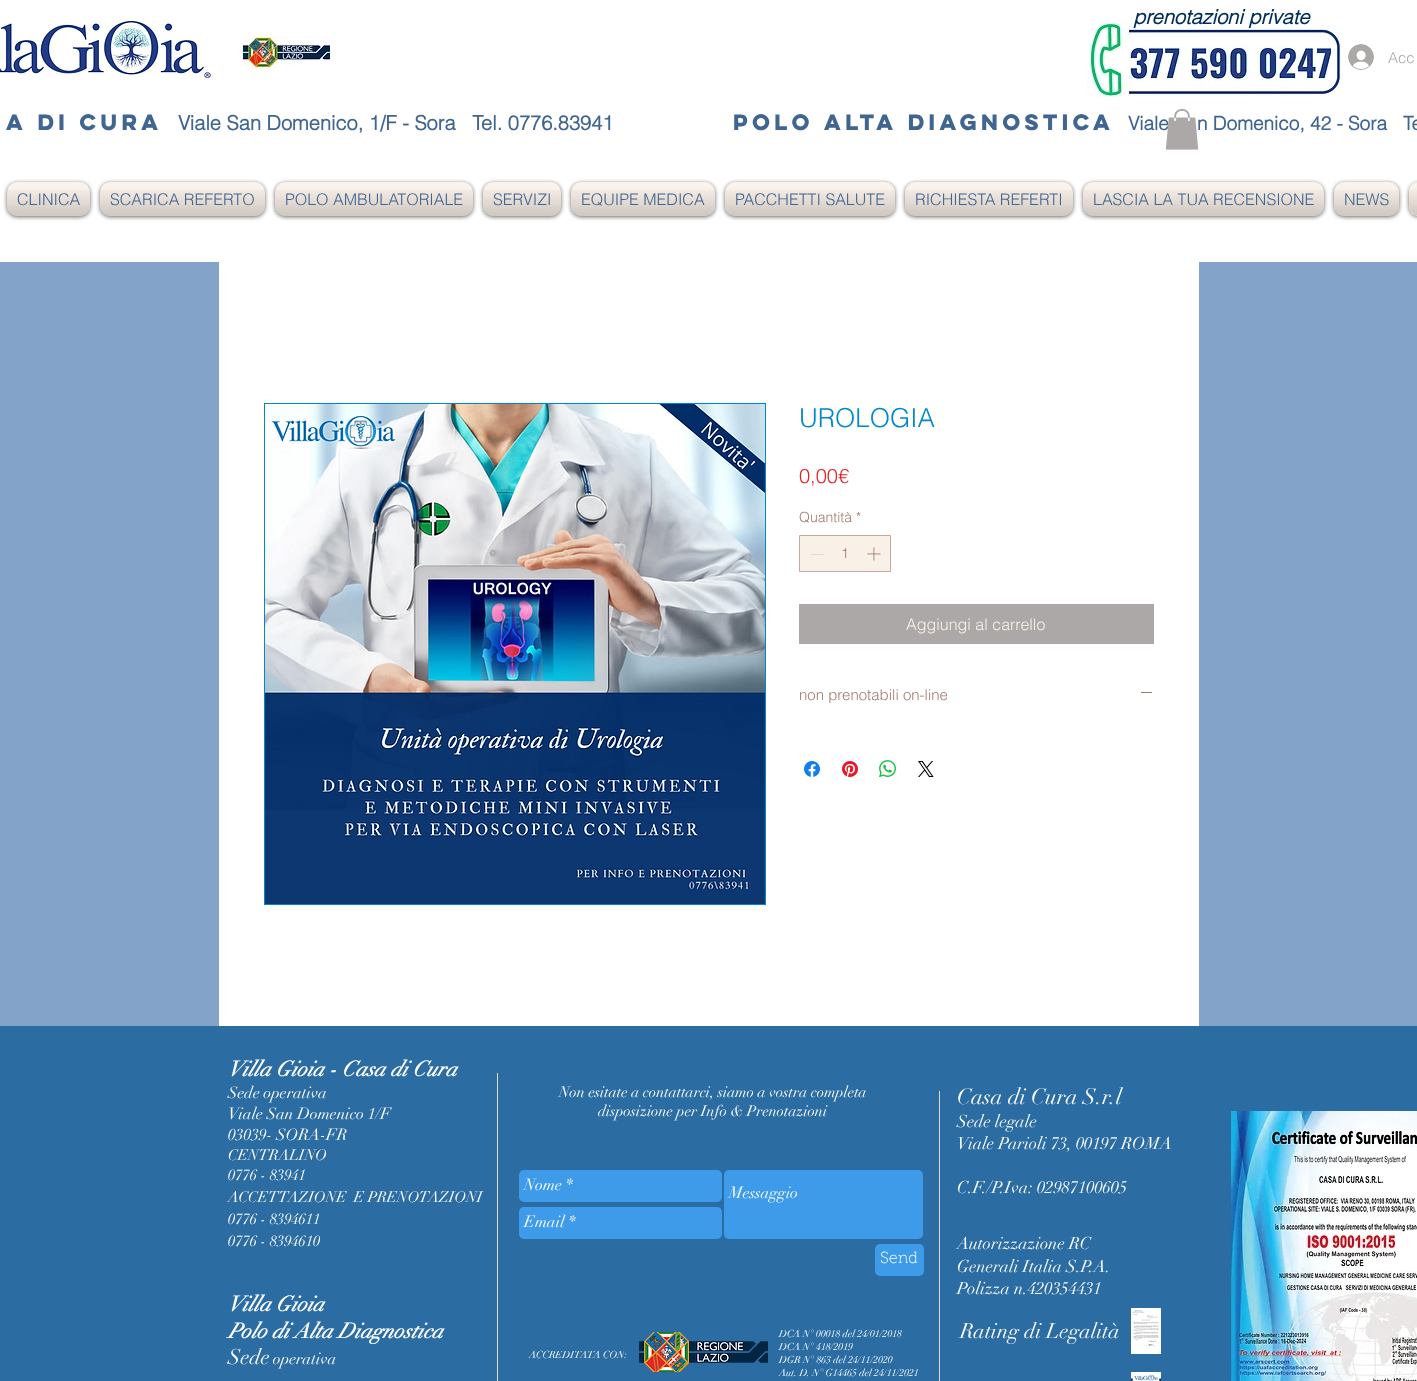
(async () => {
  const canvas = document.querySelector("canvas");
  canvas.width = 1417;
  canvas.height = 1381;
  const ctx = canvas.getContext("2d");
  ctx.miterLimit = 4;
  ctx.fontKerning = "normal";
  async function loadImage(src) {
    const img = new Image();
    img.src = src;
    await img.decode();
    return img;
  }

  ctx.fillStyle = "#83a3c9";
  ctx.fillRect(0, 0, 1417, 1381);
  ctx.fillStyle = "#ffffff";
  ctx.fillRect(0, 0, 1417, 262);
  ctx.drawImage(await loadImage("img/1.png"), 0, 21, 213, 58);
  ctx.drawImage(await loadImage("img/2.png"), 243, 37, 87, 31);
  ctx.drawImage(await loadImage("img/3.png"), 1087, 22, 254, 75);
  ctx.drawImage(await loadImage("img/4.png"), 1348, 44, 26, 26);
  ctx.fillStyle = "rgba(0, 0, 0, 0.6)";
  ctx.filter = "blur(2px)";
  ctx.beginPath();
  ctx.roundRect(7, 183, 83, 34, 10);
  ctx.fill();
  ctx.filter = "none";
  ctx.fillStyle = "#f9f0e8";
  ctx.beginPath();
  ctx.roundRect(7, 182, 83, 34, 10);
  ctx.fill();
  ctx.drawImage(await loadImage("img/6.png"), 9, 182, 79, 6);
  ctx.drawImage(await loadImage("img/7.png"), 7, 190, 83, 26);
  ctx.fillStyle = "rgba(0, 0, 0, 0.6)";
  ctx.filter = "blur(2px)";
  ctx.beginPath();
  ctx.roundRect(100, 183, 165, 34, 10);
  ctx.fill();
  ctx.filter = "none";
  ctx.fillStyle = "#f9f0e8";
  ctx.beginPath();
  ctx.roundRect(100, 182, 165, 34, 10);
  ctx.fill();
  ctx.drawImage(await loadImage("img/8.png"), 102, 182, 161, 6);
  ctx.drawImage(await loadImage("img/9.png"), 100, 190, 165, 26);
  ctx.fillStyle = "rgba(0, 0, 0, 0.6)";
  ctx.filter = "blur(2px)";
  ctx.beginPath();
  ctx.roundRect(275, 183, 198, 34, 10);
  ctx.fill();
  ctx.filter = "none";
  ctx.fillStyle = "#f9f0e8";
  ctx.beginPath();
  ctx.roundRect(275, 182, 198, 34, 10);
  ctx.fill();
  ctx.drawImage(await loadImage("img/10.png"), 277, 182, 194, 6);
  ctx.drawImage(await loadImage("img/11.png"), 275, 190, 198, 26);
  ctx.fillStyle = "rgba(0, 0, 0, 0.6)";
  ctx.filter = "blur(2px)";
  ctx.beginPath();
  ctx.roundRect(483, 183, 78, 34, 10);
  ctx.fill();
  ctx.filter = "none";
  ctx.fillStyle = "#f9f0e8";
  ctx.beginPath();
  ctx.roundRect(483, 182, 78, 34, 10);
  ctx.fill();
  ctx.drawImage(await loadImage("img/12.png"), 485, 182, 74, 6);
  ctx.drawImage(await loadImage("img/13.png"), 483, 190, 78, 26);
  ctx.fillStyle = "rgba(0, 0, 0, 0.6)";
  ctx.filter = "blur(2px)";
  ctx.beginPath();
  ctx.roundRect(571, 183, 144, 34, 10);
  ctx.fill();
  ctx.filter = "none";
  ctx.fillStyle = "#f9f0e8";
  ctx.beginPath();
  ctx.roundRect(571, 182, 144, 34, 10);
  ctx.fill();
  ctx.drawImage(await loadImage("img/14.png"), 573, 182, 140, 6);
  ctx.drawImage(await loadImage("img/15.png"), 571, 190, 144, 26);
  ctx.fillStyle = "rgba(0, 0, 0, 0.6)";
  ctx.filter = "blur(2px)";
  ctx.beginPath();
  ctx.roundRect(725, 183, 170, 34, 10);
  ctx.fill();
  ctx.filter = "none";
  ctx.fillStyle = "#f9f0e8";
  ctx.beginPath();
  ctx.roundRect(725, 182, 170, 34, 10);
  ctx.fill();
  ctx.drawImage(await loadImage("img/16.png"), 727, 182, 166, 6);
  ctx.drawImage(await loadImage("img/17.png"), 725, 190, 170, 26);
  ctx.fillStyle = "rgba(0, 0, 0, 0.6)";
  ctx.filter = "blur(2px)";
  ctx.beginPath();
  ctx.roundRect(905, 183, 168, 34, 10);
  ctx.fill();
  ctx.filter = "none";
  ctx.fillStyle = "#f9f0e8";
  ctx.beginPath();
  ctx.roundRect(905, 182, 168, 34, 10);
  ctx.fill();
  ctx.drawImage(await loadImage("img/18.png"), 907, 182, 164, 6);
  ctx.drawImage(await loadImage("img/19.png"), 905, 190, 168, 26);
  ctx.fillStyle = "rgba(0, 0, 0, 0.6)";
  ctx.filter = "blur(2px)";
  ctx.beginPath();
  ctx.roundRect(1083, 183, 241, 34, 10);
  ctx.fill();
  ctx.filter = "none";
  ctx.fillStyle = "#f9f0e8";
  ctx.beginPath();
  ctx.roundRect(1083, 182, 241, 34, 10);
  ctx.fill();
  ctx.drawImage(await loadImage("img/20.png"), 1085, 182, 237, 6);
  ctx.drawImage(await loadImage("img/21.png"), 1083, 190, 241, 26);
  ctx.fillStyle = "rgba(0, 0, 0, 0.6)";
  ctx.filter = "blur(2px)";
  ctx.beginPath();
  ctx.roundRect(1334, 183, 65, 34, 10);
  ctx.fill();
  ctx.filter = "none";
  ctx.fillStyle = "#f9f0e8";
  ctx.beginPath();
  ctx.roundRect(1334, 182, 65, 34, 10);
  ctx.fill();
  ctx.drawImage(await loadImage("img/22.png"), 1336, 182, 61, 6);
  ctx.drawImage(await loadImage("img/23.png"), 1334, 190, 65, 26);
  ctx.fillStyle = "rgba(0, 0, 0, 0.6)";
  ctx.filter = "blur(2px)";
  ctx.beginPath();
  ctx.roundRect(1409, 183, 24, 34, 10);
  ctx.fill();
  ctx.filter = "none";
  ctx.fillStyle = "#f9f0e8";
  ctx.beginPath();
  ctx.roundRect(1409, 182, 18, 34, 10);
  ctx.fill();
  ctx.drawImage(await loadImage("img/24.png"), 1411, 183, 6, 5);
  ctx.drawImage(await loadImage("img/25.png"), 1409, 190, 8, 26);
  ctx.fillStyle = "#ffffff";
  ctx.fillRect(219, 262, 980, 764);
  ctx.strokeStyle = "#0088cb";
  ctx.strokeRect(264.5, 403.5, 501, 501);
  ctx.drawImage(await loadImage("img/26.png"), 265, 404, 500, 500);
  ctx.fillStyle = "#f9f0e8";
  ctx.beginPath();
  ctx.rect(799.5, 535.5, 91, 36);
  ctx.fill();
  ctx.strokeStyle = "#c4a99e";
  ctx.stroke();
  ctx.fillStyle = "#e0dcd8";
  ctx.fillRect(811, 554, 13, 1);
  ctx.drawImage(await loadImage("img/27.png"), 867, 547, 14, 14);
  ctx.fillStyle = "#ada8a8";
  ctx.fillRect(799, 604, 355, 40);
  ctx.fillStyle = "#a0796d";
  ctx.fillRect(1141, 692, 11, 1);
  ctx.drawImage(await loadImage("img/28.png"), 804, 761, 16, 16);
  ctx.drawImage(await loadImage("img/29.png"), 842, 761, 16, 16);
  ctx.drawImage(await loadImage("img/30.png"), 879, 760, 17, 17);
  ctx.drawImage(await loadImage("img/31.png"), 918, 761, 16, 16);
  for (const [x, y, w, h, color] of [
    [0, 1026, 1417, 355, "#2b6ca3"],
    [497, 1073, 1, 308, "#e6d8d0"],
    [939, 1091, 1, 290, "#e6d8d0"],
  ]) {
    ctx.fillStyle = color;
    ctx.fillRect(x, y, w, h);
  }
  ctx.drawImage(await loadImage("img/32.png"), 1231, 1111, 186, 270);
  ctx.fillStyle = "#3d9be9";
  ctx.beginPath();
  ctx.roundRect(519, 1170, 203, 32, 5);
  ctx.fill();
  ctx.beginPath();
  ctx.roundRect(724, 1170, 199, 69, 5);
  ctx.fill();
  ctx.beginPath();
  ctx.roundRect(519, 1207, 203, 32, 5);
  ctx.fill();
  ctx.beginPath();
  ctx.roundRect(875, 1244, 49, 32, 5);
  ctx.fill();
  ctx.drawImage(await loadImage("img/33.png"), 639, 1332, 129, 40);
  ctx.drawImage(await loadImage("img/34.png"), 1131, 1308, 30, 46);
  ctx.drawImage(await loadImage("img/35.png"), 1131, 1372, 30, 9);
  ctx.font = "italic bold 20px helvetica";
  ctx.fillStyle = "#002d5c";
  ctx.fillText("prenotazioni private", 1133, 24);
  ctx.font = "300 15px helvetica";
  ctx.fillStyle = "#ada8a8";
  ctx.fillText("Acc", 1388, 63);
  ctx.font = "bold 20px 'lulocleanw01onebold'";
  ctx.fillStyle = "#406591";
  ctx.fillText("a di Cura", 6, 130);
  ctx.font = "bold 20px helvetica";
  ctx.fillText("Viale San Domenico, 1/F - Sora   Tel. 0776.83941", 178, 130);
  ctx.font = "bold 20px 'lulocleanw01onebold'";
  ctx.fillText("Polo alta diagnostica", 733, 130);
  ctx.font = "bold 19px helvetica";
  ctx.fillText("Viale", 1128, 130);
  ctx.fillText("n Domenico, 42 - Sora   Te", 1197, 130);
  ctx.drawImage(await loadImage("img/5.png"), 1165, 109, 34, 41);
  ctx.font = "300 16px helvetica";
  for (const [text, x, y] of [
    ["CLINICA", 17, 205],
    ["SCARICA REFERTO", 110, 205],
    ["POLO AMBULATORIALE", 285, 205],
    ["SERVIZI", 493, 205],
    ["EQUIPE MEDICA", 581, 205],
    ["PACCHETTI SALUTE", 735, 205],
    ["RICHIESTA REFERTI", 915, 205],
    ["LASCIA LA TUA RECENSIONE", 1093, 205],
    ["NEWS", 1344, 205],
  ]) {
    ctx.fillText(text, x, y);
  }
  ctx.font = "300 26px helvetica";
  ctx.fillStyle = "#0088cb";
  ctx.fillText("UROLOGIA", 799, 427);
  ctx.font = "300 20px helvetica";
  ctx.fillStyle = "#ed1c24";
  ctx.fillText("0,00€", 799, 483);
  ctx.font = "300 14px helvetica";
  ctx.fillStyle = "#a0796d";
  ctx.fillText("Quantità *", 799, 522);
  ctx.fillText("1", 841, 558);
  ctx.font = "300 16px helvetica";
  ctx.fillStyle = "#f9f0e8";
  ctx.fillText("Aggiungi al carrello", 906, 630);
  ctx.font = "300 15px helvetica";
  ctx.fillStyle = "#a0796d";
  ctx.fillText("non prenotabili on-line", 799, 700);
  ctx.font = "italic bold 21px didot";
  ctx.fillStyle = "#ffffff";
  ctx.fillText("Villa Gioia - Casa di Cura", 228, 1076);
  ctx.font = "16px didot";
  for (const [text, x, y] of [
    ["Sede operativa", 228, 1098],
    ["Viale San Domenico 1/F", 228, 1119],
    ["03039- SORA-FR", 228, 1140],
  ]) {
    ctx.fillText(text, x, y);
  }
  ctx.font = "15px didot";
  for (const [text, x, y] of [
    ["CENTRALINO", 228, 1160],
    ["0776 - 83941", 228, 1180],
    ["ACCETTAZIONE  E PRENOTAZIONI", 228, 1202],
    ["0776 - 8394611", 228, 1224],
    ["0776 - 8394610", 228, 1246],
  ]) {
    ctx.fillText(text, x, y);
  }
  ctx.font = "italic bold 21px didot";
  ctx.fillText("Villa Gioia", 228, 1311);
  ctx.fillText("Polo di Alta Diagnostica", 228, 1338);
  ctx.font = "21px didot";
  ctx.fillText("Sede", 228, 1364);
  ctx.font = "16px didot";
  ctx.fillText("operativa", 273, 1364);
  ctx.font = "15px didot";
  ctx.fillText("Non esitate a contattarci, siamo a vostra completa", 559, 1097);
  ctx.fillText("disposizione per Info & Prenotazioni", 598, 1116);
  ctx.font = "22px didot";
  ctx.fillText("Casa di Cura S.r.l", 957, 1104);
  ctx.font = "17px didot";
  for (const [text, x, y] of [
    ["Sede legale", 957, 1127],
    ["Viale Parioli 73, 00197 ROMA", 957, 1149],
    ["C.F./P.Iva: 02987100605", 957, 1193],
  ]) {
    ctx.fillText(text, x, y);
  }
  ctx.font = "16px didot";
  for (const [text, x, y] of [
    ["Nome *", 524, 1190],
    ["Messaggio", 729, 1198],
    ["Email *", 524, 1227],
  ]) {
    ctx.fillText(text, x, y);
  }
  ctx.font = "100 16px 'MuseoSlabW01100'";
  ctx.fillText("Send", 880, 1263);
  ctx.font = "17px didot";
  for (const [text, x, y] of [
    ["Autorizzazione RC", 957, 1249],
    ["Generali Italia S.P.A.", 957, 1272],
    ["Polizza n.420354431", 957, 1294],
  ]) {
    ctx.fillText(text, x, y);
  }
  ctx.font = "10px didot";
  for (const [text, x, y] of [
    ["ACCREDITATA CON:", 529, 1358],
    ["DCA N° 00018 del 24/01/2018", 779, 1337],
    ["DCA N° 418/2019", 779, 1350],
    ["DGR N° 863 del 24/11/2020", 779, 1363],
    ["Aut. D. N° G14465 del 24/11/2021", 779, 1376],
  ]) {
    ctx.fillText(text, x, y);
  }
  ctx.font = "21px didot";
  ctx.fillText("Rating di Legalità", 960, 1338);
})();
